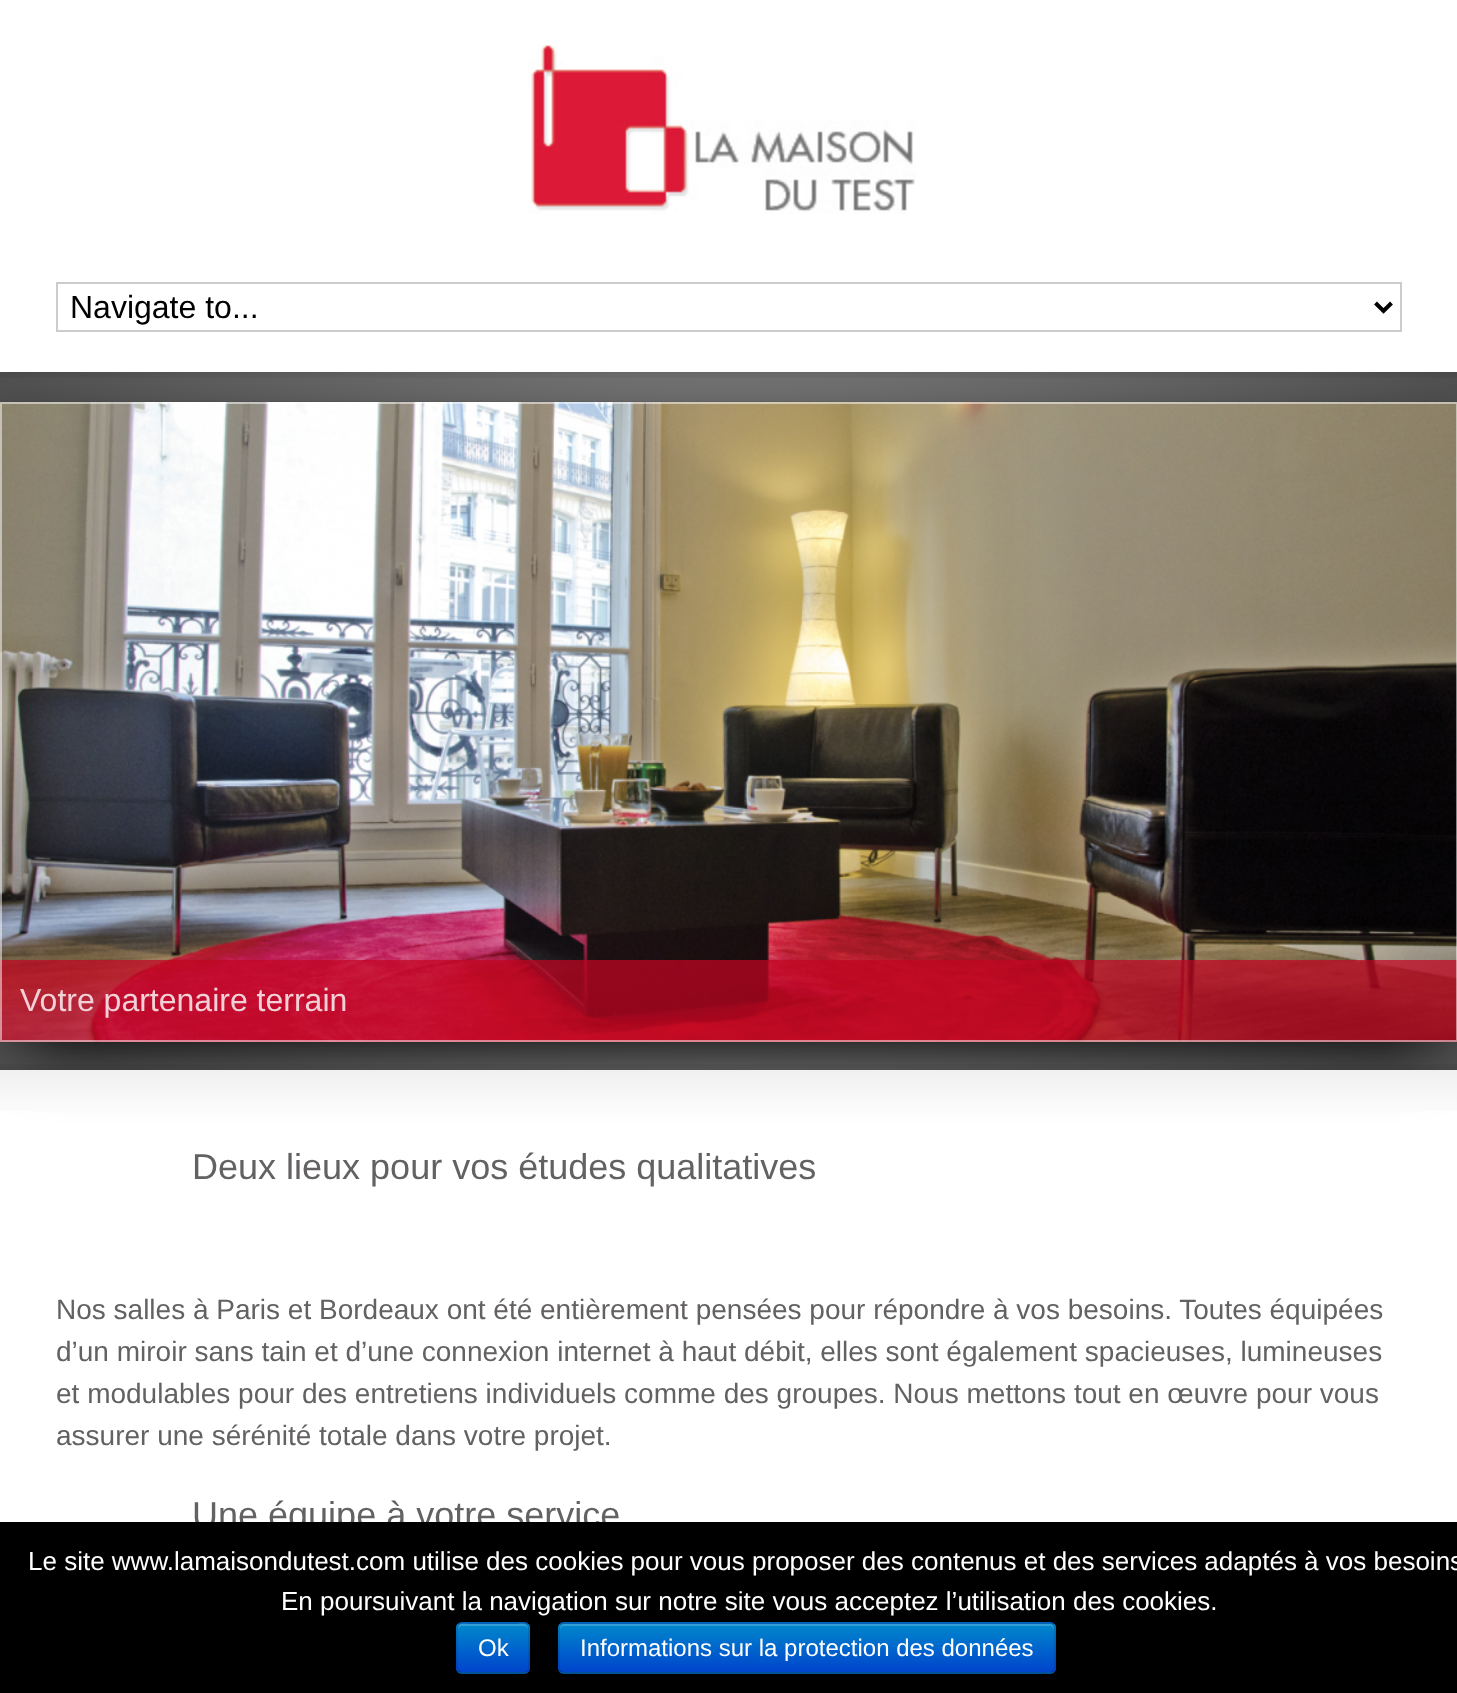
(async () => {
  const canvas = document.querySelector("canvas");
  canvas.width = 1457;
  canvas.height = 1693;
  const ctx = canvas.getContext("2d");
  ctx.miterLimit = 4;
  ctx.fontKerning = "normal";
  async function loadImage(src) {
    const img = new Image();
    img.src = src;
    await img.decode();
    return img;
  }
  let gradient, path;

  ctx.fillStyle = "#ffffff";
  ctx.fillRect(0, 0, 1457, 1693);
  ctx.drawImage(await loadImage("img/1.png"), 528, 45, 388, 169);
  ctx.strokeStyle = "#cccccc";
  ctx.lineWidth = 2;
  ctx.strokeRect(57, 283, 1344, 48);
  path = new Path2D("M1375.5 303L1383.5 311L1391.5 303");
  ctx.strokeStyle = "#000000";
  ctx.lineWidth = 4;
  ctx.stroke(path);
  gradient = ctx.createRadialGradient(729, 721, 0, 729, 721, 808);
  gradient.addColorStop(0, "#8a8a8a");
  gradient.addColorStop(1, "#505050");
  ctx.fillStyle = gradient;
  ctx.fillRect(0, 372, 1457, 698);
  ctx.drawImage(await loadImage("img/2.png"), 0, 372, 1457, 6);
  ctx.drawImage(await loadImage("img/4.png"), 0, 1064, 1457, 6);
  ctx.fillStyle = "rgba(0, 0, 0, 0.8)";
  ctx.filter = "blur(30px)";
  ctx.beginPath();
  ctx.rect(30, 472, 1398, 580);
  ctx.fill();
  ctx.filter = "none";
  ctx.fillStyle = "rgba(0, 0, 0, 0.2)";
  ctx.filter = "blur(15px)";
  ctx.beginPath();
  ctx.rect(0, 402, 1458, 640);
  ctx.fill();
  ctx.filter = "none";
  ctx.fillStyle = "rgba(0, 0, 0, 0.1)";
  ctx.filter = "blur(1px)";
  ctx.beginPath();
  ctx.rect(0, 402, 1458, 640);
  ctx.fill();
  ctx.filter = "none";
  ctx.drawImage(await loadImage("img/3.png"), 0, 402, 1457, 640);
  ctx.fillStyle = "rgba(196, 4, 33, 0.72)";
  ctx.fillRect(0, 960, 1457, 82);
  ctx.strokeStyle = "rgba(255, 255, 255, 0.5)";
  ctx.lineWidth = 2;
  ctx.strokeRect(1, 403, 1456, 638);
  gradient = ctx.createLinearGradient(729, 1070, 729, 1124);
  gradient.addColorStop(0, "#f0f0f0");
  gradient.addColorStop(1, "#ffffff");
  ctx.fillStyle = gradient;
  ctx.fillRect(0, 1070, 1457, 41);
  ctx.font = "32px Liberation Sans";
  ctx.fillStyle = "#000000";
  ctx.fillText("Navigate to...", 70, 318);
  ctx.fillStyle = "#f2d0d6";
  ctx.fillText("Votre partenaire terrain", 20, 1011);
  ctx.font = "36px Liberation Sans";
  ctx.fillStyle = "#636161";
  ctx.fillText("Deux lieux pour vos études qualitatives", 192, 1179);
  ctx.font = "28px Liberation Sans";
  for (const [text, x, y] of [
    ["Nos salles à Paris et Bordeaux ont été entièrement pensées pour répondre à vos besoins. Toutes équipées", 56, 1319],
    ["d’un miroir sans tain et d’une connexion internet à haut débit, elles sont également spacieuses, lumineuses", 56, 1361],
    ["et modulables pour des entretiens individuels comme des groupes. Nous mettons tout en œuvre pour vous", 56, 1403],
    ["assurer une sérénité totale dans votre projet.", 56, 1445],
  ]) {
    ctx.fillText(text, x, y);
  }
  ctx.font = "36px Liberation Sans";
  ctx.fillText("Une équipe à votre service", 192, 1527);
  ctx.fillStyle = "#000000";
  ctx.fillRect(0, 1522, 1457, 171);
  ctx.font = "26px Liberation Sans";
  ctx.fillStyle = "#ffffff";
  ctx.fillText("Le site www.lamaisondutest.com utilise des cookies pour vous proposer des contenus et des services adaptés à vos besoins", 28, 1570);
  ctx.fillText("En poursuivant la navigation sur notre site vous acceptez l’utilisation des cookies.", 281, 1610);
  ctx.fillStyle = "#006dcc";
  ctx.beginPath();
  ctx.roundRect(456, 1622, 74, 52, 6);
  ctx.fill();
  ctx.save();
  ctx.beginPath();
  ctx.roundRect(456, 1622, 74, 52, 6);
  ctx.clip();
  gradient = ctx.createLinearGradient(493, 1624, 493, 1672);
  gradient.addColorStop(0, "#0088cc");
  gradient.addColorStop(1, "#0044cc");
  ctx.fillStyle = gradient;
  ctx.fillRect(456, 1624, 74, 48);
  ctx.restore();
  ctx.fillStyle = "rgba(255, 255, 255, 0.2)";
  path = new Path2D("M462 1626H524C526 1626 528 1628 528 1630C528 1621 521 1624 514 1624H472C465 1624 458 1621 458 1630C458 1628 460 1626 462 1626Z");
  ctx.fill(path);
  path = new Path2D("M527.5 1671.5C526.5 1672.5 525.5 1673 524 1673H462C460.5 1673 459.5 1672.5 458.5 1671.5");
  ctx.strokeStyle = "rgba(0, 0, 0, 0.25)";
  ctx.stroke(path);
  path = new Path2D("M458.5 1671.5C457.5 1670.5 457 1669.5 457 1668V1628C457 1626.5 457.5 1625.5 458.5 1624.5C459.5 1623.5 460.5 1623 462 1623H524C525.5 1623 526.5 1623.5 527.5 1624.5C528.5 1625.5 529 1626.5 529 1628V1668C529 1669.5 528.5 1670.5 527.5 1671.5");
  ctx.strokeStyle = "rgba(0, 0, 0, 0.1)";
  ctx.stroke(path);
  ctx.font = "24px Liberation Sans";
  ctx.fillStyle = "#ffffff";
  ctx.fillText("Ok", 478, 1656);
  ctx.fillStyle = "#006dcc";
  ctx.beginPath();
  ctx.roundRect(558, 1622, 498, 52, 6);
  ctx.fill();
  ctx.save();
  ctx.beginPath();
  ctx.roundRect(558, 1622, 498, 52, 6);
  ctx.clip();
  gradient = ctx.createLinearGradient(807, 1624, 807, 1672);
  gradient.addColorStop(0, "#0088cc");
  gradient.addColorStop(1, "#0044cc");
  ctx.fillStyle = gradient;
  ctx.fillRect(558, 1624, 498, 48);
  ctx.restore();
  ctx.fillStyle = "rgba(255, 255, 255, 0.2)";
  path = new Path2D("M564 1626H1050C1052 1626 1054 1628 1054 1630V1628C1054 1626 1052 1624 1050 1624H564C562 1624 560 1626 560 1628V1630C560 1628 562 1626 564 1626Z");
  ctx.fill(path);
  path = new Path2D("M1053.5 1671.5C1052.5 1672.5 1051.5 1673 1050 1673H564C562.5 1673 561.5 1672.5 560.5 1671.5");
  ctx.strokeStyle = "rgba(0, 0, 0, 0.25)";
  ctx.stroke(path);
  path = new Path2D("M560.5 1671.5C559.5 1670.5 559 1669.5 559 1668V1628C559 1626.5 559.5 1625.5 560.5 1624.5C561.5 1623.5 562.5 1623 564 1623H1050C1051.5 1623 1052.5 1623.5 1053.5 1624.5C1054.5 1625.5 1055 1626.5 1055 1628V1668C1055 1669.5 1054.5 1670.5 1053.5 1671.5");
  ctx.strokeStyle = "rgba(0, 0, 0, 0.1)";
  ctx.stroke(path);
  ctx.fillStyle = "#ffffff";
  ctx.fillText("Informations sur la protection des données", 580, 1656);
})();
